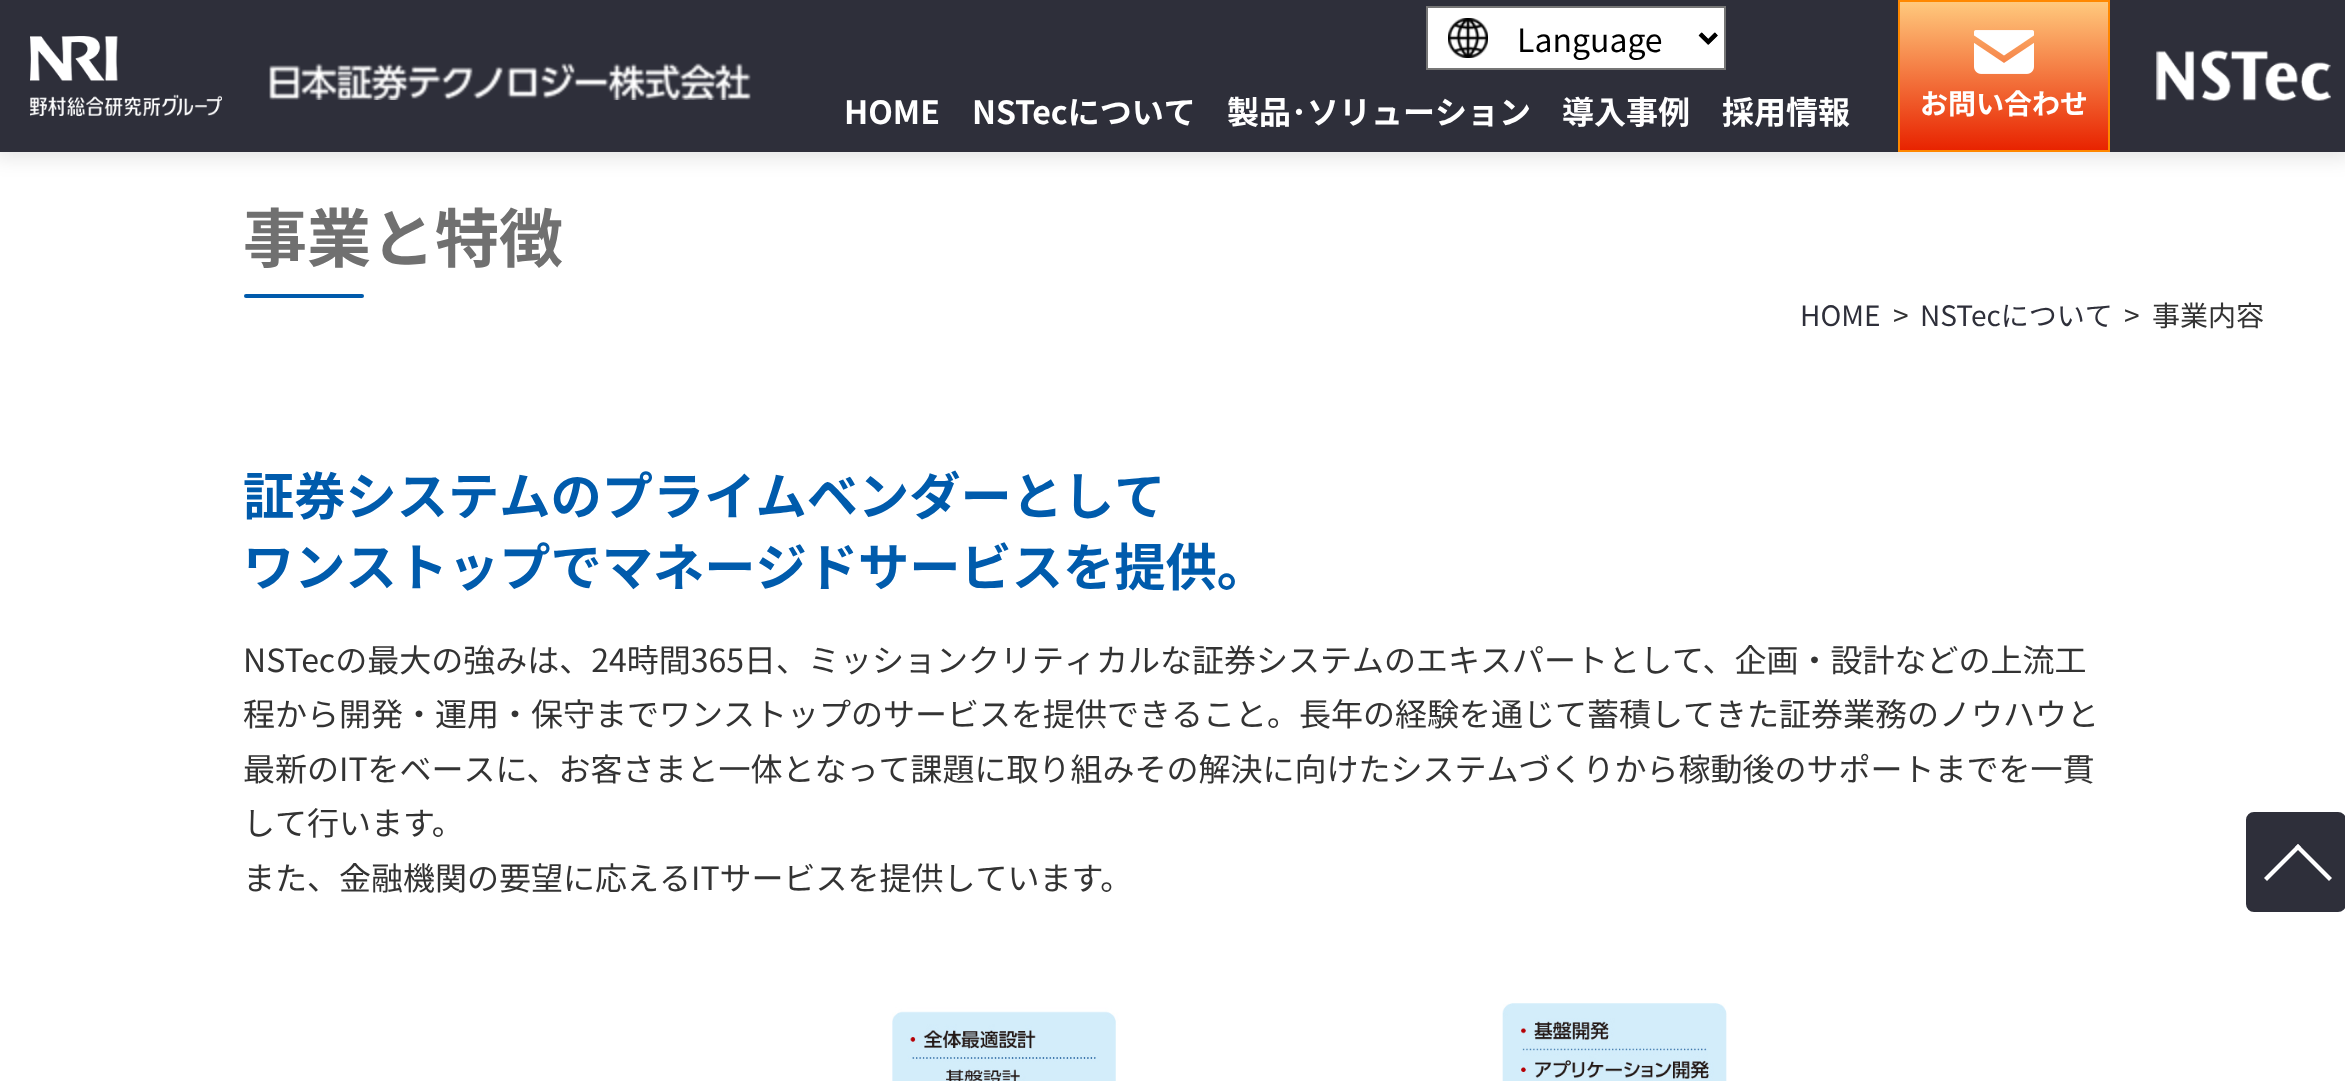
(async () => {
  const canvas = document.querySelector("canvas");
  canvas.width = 2345;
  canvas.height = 1081;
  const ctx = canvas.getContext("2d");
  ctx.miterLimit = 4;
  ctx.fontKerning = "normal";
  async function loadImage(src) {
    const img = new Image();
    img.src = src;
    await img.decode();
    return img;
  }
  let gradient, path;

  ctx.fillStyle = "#ffffff";
  ctx.fillRect(0, 0, 2345, 1081);
  ctx.fillStyle = "rgba(0, 0, 0, 0.1)";
  ctx.filter = "blur(10px)";
  ctx.beginPath();
  ctx.rect(-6, -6, 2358, 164);
  ctx.fill();
  ctx.filter = "none";
  ctx.fillStyle = "#2e2f3a";
  ctx.fillRect(0, 0, 2345, 152);
  ctx.drawImage(await loadImage("img/1.png"), 30, 36, 192, 80);
  ctx.drawImage(await loadImage("img/2.png"), 269, 63, 482, 37);
  ctx.fillStyle = "#ffffff";
  ctx.fillRect(1428, 8, 296, 60);
  ctx.drawImage(await loadImage("img/3.png"), 1448, 18, 270, 40);
  ctx.strokeStyle = "#767676";
  ctx.lineWidth = 2;
  ctx.strokeRect(1427, 7, 298, 62);
  path = new Path2D("M1700.5 34L1708.5 42L1716.5 34");
  ctx.strokeStyle = "#000000";
  ctx.lineWidth = 4;
  ctx.stroke(path);
  gradient = ctx.createLinearGradient(2004, 2, 2004, 150);
  gradient.addColorStop(0, "#ffc97d");
  gradient.addColorStop(1, "#e82300");
  ctx.fillStyle = gradient;
  ctx.fillRect(1900, 2, 208, 148);
  ctx.strokeStyle = "#ff8800";
  ctx.lineWidth = 2;
  ctx.strokeRect(1899, 1, 210, 150);
  ctx.drawImage(await loadImage("img/4.png"), 1974, 30, 60, 44);
  ctx.drawImage(await loadImage("img/5.png"), 2156, 50, 175, 51);
  ctx.fillStyle = "#005bac";
  ctx.beginPath();
  ctx.roundRect(244, 294, 120, 4, 2);
  ctx.fill();
  ctx.drawImage(await loadImage("img/6.png"), 892, 1003, 835, 78);
  ctx.fillStyle = "#2e2f3a";
  ctx.beginPath();
  ctx.roundRect(2247, 813, 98, 98, 7);
  ctx.fill();
  ctx.strokeStyle = "#2e2f3a";
  ctx.stroke();
  ctx.fillStyle = "#ffffff";
  path = new Path2D("M2264 878L2298 844L2301 847L2267 881Z");
  ctx.fill(path);
  path = new Path2D("M2295 847L2298 844L2332 878L2329 881Z");
  ctx.fill(path);
  ctx.font = "32px Noto Sans JP";
  ctx.fillStyle = "#000000";
  ctx.fillText("Language", 1517, 52);
  ctx.font = "bold 32px Noto Sans JP";
  ctx.fillStyle = "#ffffff";
  for (const [text, x, y] of [
    ["HOME", 844, 124],
    ["NSTecについて", 972, 124],
    ["製品･ソリューション", 1227, 124],
    ["導入事例", 1562, 124],
    ["採用情報", 1722, 124],
  ]) {
    ctx.fillText(text, x, y);
  }
  ctx.font = "bold 28px Noto Sans JP";
  ctx.fillText("お問い合わせ", 1920, 114);
  ctx.font = "bold 64px Noto Sans JP";
  ctx.fillStyle = "#707070";
  ctx.fillText("事業と特徴", 243, 262);
  ctx.font = "bold 51.25px Noto Sans JP";
  ctx.fillStyle = "#005bac";
  ctx.fillText("証券システムのプライムベンダーとして", 243, 515);
  ctx.fillText("ワンストップでマネージドサービスを提供。", 243, 586);
  ctx.font = "32px Noto Sans JP";
  ctx.fillStyle = "#333333";
  for (const [text, x, y] of [
    ["NSTecの最大の強みは、24時間365日、ミッションクリティカルな証券システムのエキスパートとして、企画・設計などの上流工", 243, 672],
    ["程から開発・運用・保守までワンストップのサービスを提供できること。長年の経験を通じて蓄積してきた証券業務のノウハウと", 243, 726],
    ["最新のITをベースに、お客さまと一体となって課題に取り組みその解決に向けたシステムづくりから稼動後のサポートまでを一貫", 243, 781],
    ["して行います。", 243, 835],
    ["また、金融機関の要望に応えるITサービスを提供しています。", 243, 890],
  ]) {
    ctx.fillText(text, x, y);
  }
  ctx.font = "28px Noto Sans JP";
  ctx.fillStyle = "#2e2f3a";
  ctx.fillText("HOME", 1800, 326);
  ctx.fillStyle = "#333333";
  ctx.fillText(">", 1893, 326);
  ctx.fillStyle = "#2e2f3a";
  ctx.fillText("NSTecについて", 1920, 326);
  ctx.fillStyle = "#333333";
  ctx.fillText(">", 2124, 326);
  ctx.fillText("事業内容", 2152, 326);
})();
